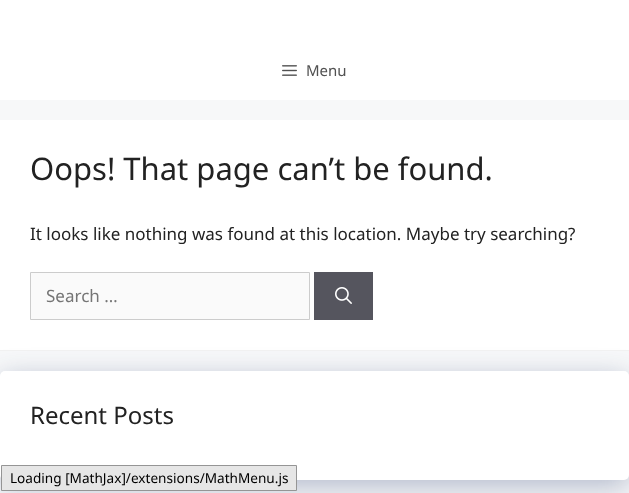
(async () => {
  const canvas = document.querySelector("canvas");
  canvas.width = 629;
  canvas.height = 493;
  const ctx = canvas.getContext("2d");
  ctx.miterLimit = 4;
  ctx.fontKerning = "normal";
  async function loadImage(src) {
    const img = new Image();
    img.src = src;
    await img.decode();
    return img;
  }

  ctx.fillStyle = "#f7f8f9";
  ctx.fillRect(0, 0, 629, 493);
  ctx.fillStyle = "#ffffff";
  ctx.fillRect(0, 0, 629, 100);
  ctx.drawImage(await loadImage("img/1.png"), 282, 65, 15, 11);
  ctx.fillRect(0, 120, 629, 230);
  ctx.fillStyle = "#f2f2f2";
  ctx.fillRect(0, 350, 629, 1);
  ctx.fillStyle = "#fafafa";
  ctx.beginPath();
  ctx.rect(30.5, 272.5, 279, 47);
  ctx.fill();
  ctx.strokeStyle = "#cccccc";
  ctx.stroke();
  ctx.fillStyle = "#55555e";
  ctx.fillRect(314, 272, 59, 48);
  ctx.drawImage(await loadImage("img/2.png"), 335, 287, 17, 17);
  ctx.fillStyle = "rgba(23, 43, 99, 0.3)";
  ctx.filter = "blur(14px)";
  ctx.beginPath();
  ctx.roundRect(0, 378, 629, 109, 5);
  ctx.fill();
  ctx.filter = "none";
  ctx.fillStyle = "#ffffff";
  ctx.beginPath();
  ctx.roundRect(0, 371, 629, 109, 5);
  ctx.fill();
  ctx.fillStyle = "#e6e6e6";
  ctx.beginPath();
  ctx.rect(1.5, 465.5, 295, 25);
  ctx.fill();
  ctx.strokeStyle = "#959595";
  ctx.stroke();
  ctx.font = "15px Noto Sans";
  ctx.fillStyle = "#515151";
  ctx.fillText("Menu", 306, 76);
  ctx.font = "31px Noto Sans";
  ctx.fillStyle = "#222222";
  ctx.fillText("Oops! That page can’t be found.", 30, 180);
  ctx.font = "17px Noto Sans";
  ctx.fillText("It looks like nothing was found at this location. Maybe try searching?", 30, 240);
  ctx.fillStyle = "#757575";
  ctx.fillText("Search …", 46, 302);
  ctx.font = "24px Noto Sans";
  ctx.fillStyle = "#222222";
  ctx.fillText("Recent Posts", 30, 424);
  ctx.font = "13.6px Noto Sans";
  ctx.fillStyle = "#000000";
  ctx.fillText("Loading [MathJax]/extensions/MathMenu.js", 10, 483);
})();
